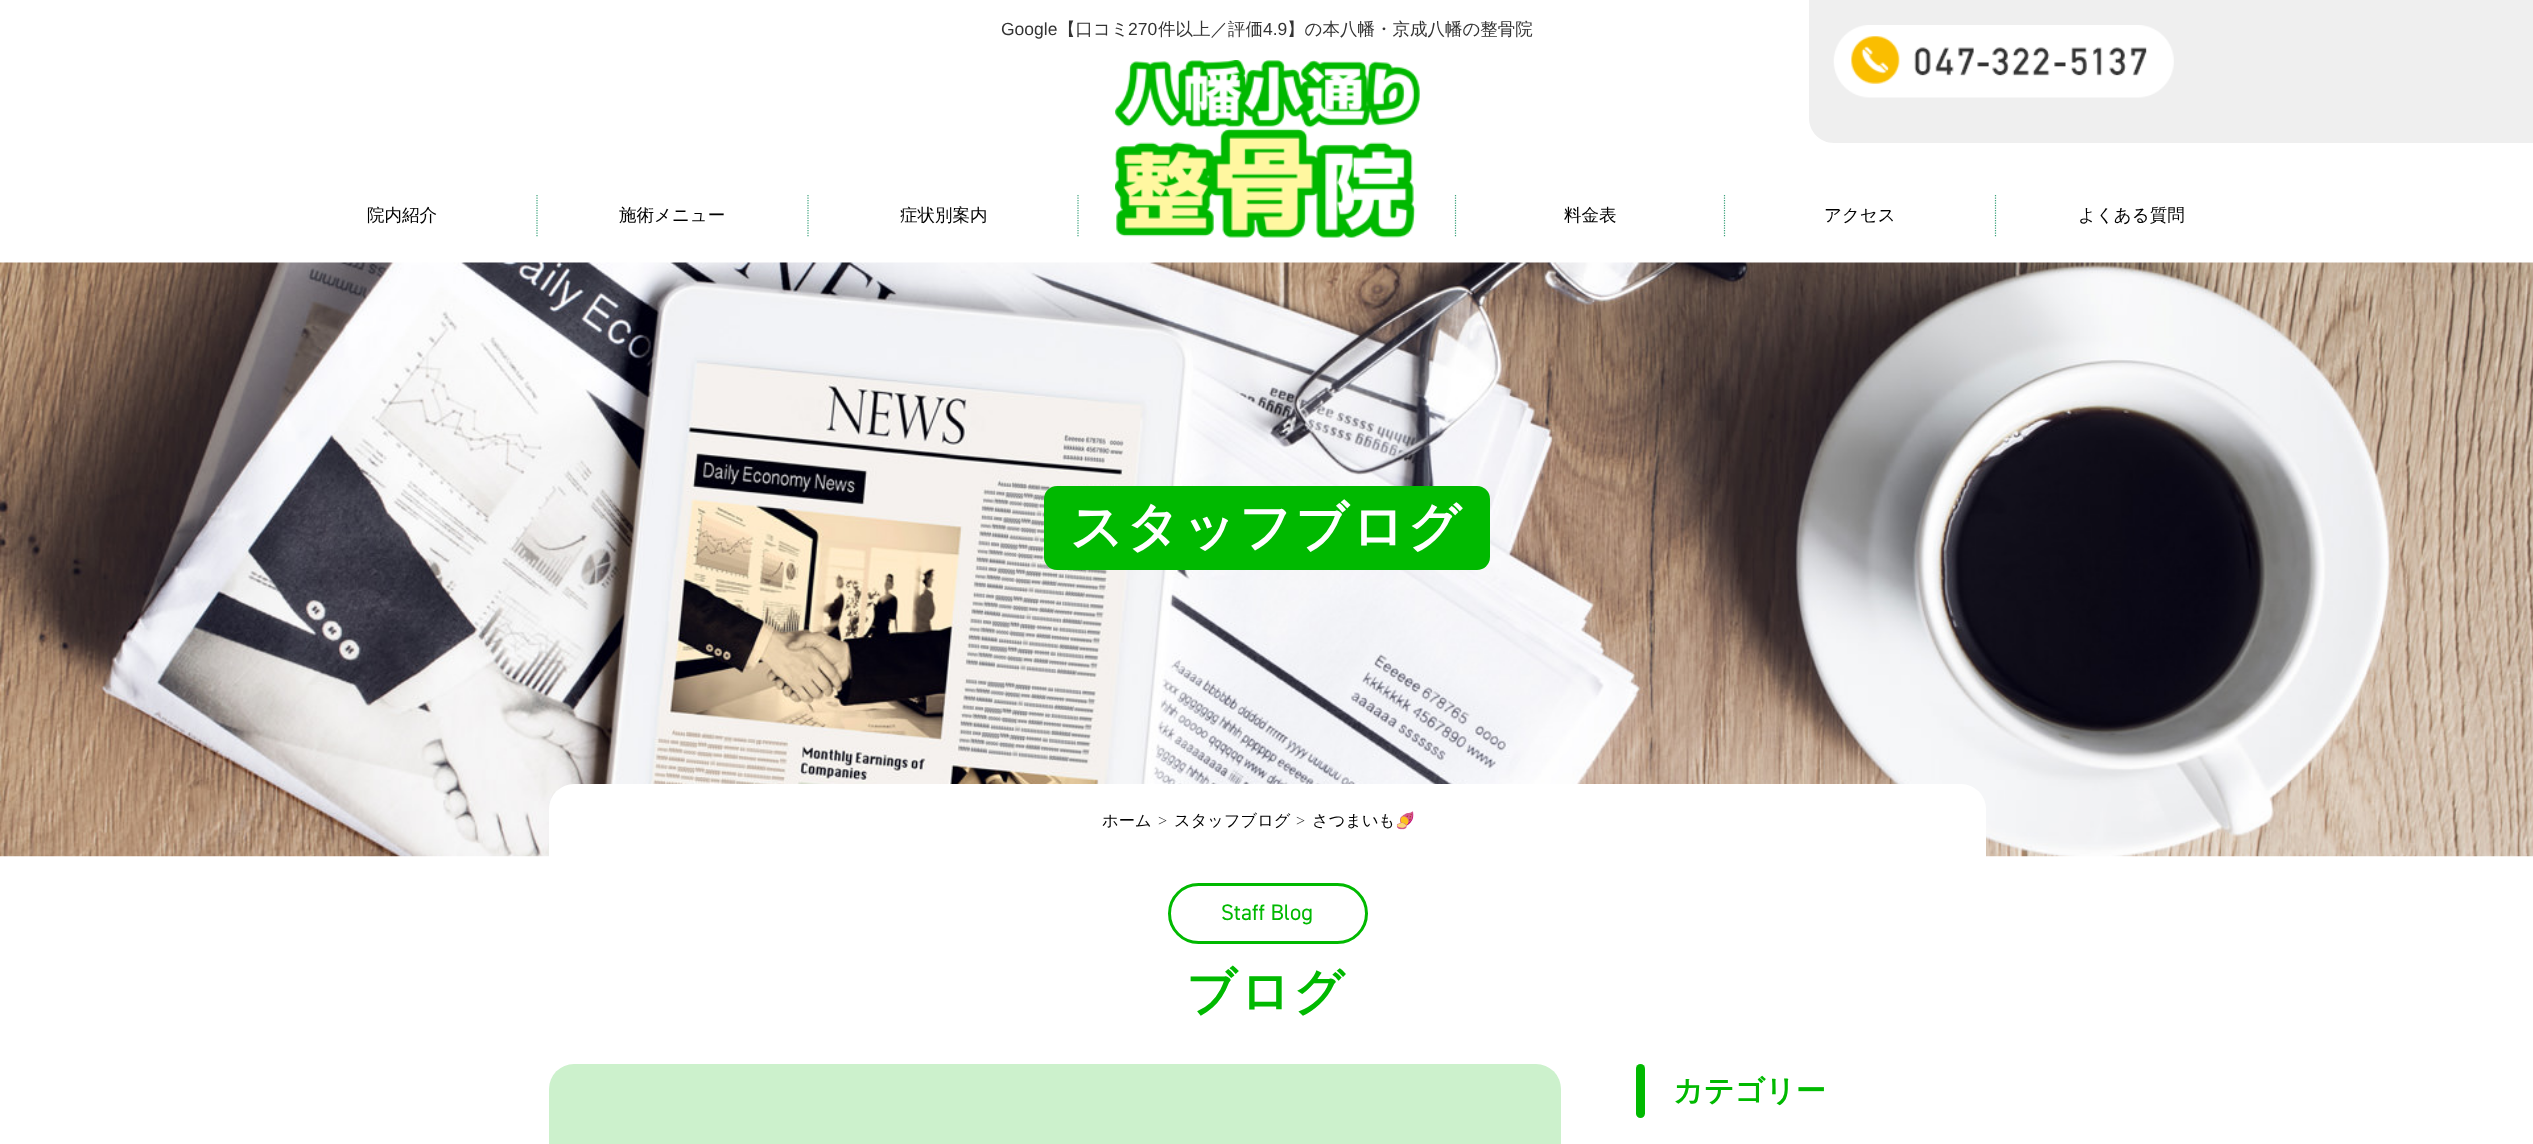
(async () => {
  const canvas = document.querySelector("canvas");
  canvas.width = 2533;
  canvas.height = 1144;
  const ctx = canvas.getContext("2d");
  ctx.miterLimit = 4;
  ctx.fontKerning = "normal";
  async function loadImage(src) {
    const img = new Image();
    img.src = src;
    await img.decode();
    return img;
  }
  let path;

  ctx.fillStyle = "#ffffff";
  ctx.fillRect(0, 0, 2533, 1144);
  ctx.fillStyle = "#efefef";
  path = new Path2D("M1809 0H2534V143H1834C1820 143 1809 132 1809 118Z");
  ctx.fill(path);
  ctx.drawImage(await loadImage("img/1.png"), 1833, 25, 341, 73);
  path = new Path2D("M537 195V237.5");
  ctx.strokeStyle = "#39a17a";
  ctx.lineWidth = 1.2;
  ctx.setLineDash([1.25, 1.25]);
  ctx.stroke(path);
  path = new Path2D("M808 195V237.5");
  ctx.stroke(path);
  path = new Path2D("M1078 195V237.5");
  ctx.stroke(path);
  ctx.drawImage(await loadImage("img/2.png"), 1115, 60, 305, 178);
  path = new Path2D("M1724.5 195V237.5");
  ctx.stroke(path);
  path = new Path2D("M1455.5 195V237.5");
  ctx.stroke(path);
  path = new Path2D("M1995.5 195V237.5");
  ctx.stroke(path);
  ctx.drawImage(await loadImage("img/3.png"), 0, 262, 2533, 595);
  ctx.fillStyle = "#00b900";
  ctx.beginPath();
  ctx.roundRect(1044, 486, 446, 84, 13);
  ctx.fill();
  ctx.fillStyle = "#ffffff";
  ctx.beginPath();
  ctx.roundRect(549, 784, 1437, 74, [25, 25, 0, 0]);
  ctx.fill();
  ctx.beginPath();
  ctx.roundRect(1169.5, 884.5, 197, 58, 29);
  ctx.strokeStyle = "#00b900";
  ctx.lineWidth = 3;
  ctx.setLineDash([]);
  ctx.stroke();
  ctx.fillStyle = "#ccf1cc";
  ctx.beginPath();
  ctx.roundRect(549, 1064, 1012, 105, 25);
  ctx.fill();
  ctx.fillStyle = "#00b900";
  ctx.beginPath();
  ctx.roundRect(1636, 1064, 9, 54, 4.5);
  ctx.fill();
  ctx.font = "17.5px Liberation Sans";
  ctx.fillStyle = "#333333";
  ctx.fillText("Google", 1001, 35);
  ctx.font = "500 17.5px WenQuanYi Zen Hei";
  ctx.fillText("【口コミ", 1058, 35);
  ctx.font = "17.5px Liberation Sans";
  ctx.fillText("270", 1128, 35);
  ctx.font = "500 17.5px WenQuanYi Zen Hei";
  ctx.fillText("件以上／評価", 1158, 35);
  ctx.font = "17.5px Liberation Sans";
  ctx.fillText("4.9", 1263, 35);
  ctx.font = "500 17.5px WenQuanYi Zen Hei";
  ctx.fillText("】の本八幡・京成八幡の整骨院", 1287, 35);
  ctx.fillStyle = "#000000";
  for (const [text, x, y] of [
    ["院内紹介", 367, 221],
    ["施術メニュー", 619, 221],
    ["症状別案内", 900, 221],
    ["料金表", 1564, 221],
    ["アクセス", 1824, 221],
    ["よくある質問", 2078, 221],
  ]) {
    ctx.fillText(text, x, y);
  }
  ctx.letterSpacing = "2.5px";
  ctx.font = "bold 52.5px WenQuanYi Zen Hei";
  ctx.fillStyle = "#ffffff";
  ctx.fillText("スタッフブログ", 1070, 545);
  ctx.letterSpacing = "0px";
  ctx.font = "500 16.25px WenQuanYi Zen Hei";
  ctx.fillStyle = "#000000";
  ctx.fillText("ホーム", 1102, 826);
  ctx.font = "16.25px Liberation Serif";
  ctx.fillStyle = "#333333";
  ctx.fillText(">", 1158, 826);
  ctx.font = "500 16.25px WenQuanYi Zen Hei";
  ctx.fillStyle = "#000000";
  ctx.fillText("スタッフブログ", 1174, 826);
  ctx.font = "16.25px Liberation Serif";
  ctx.fillStyle = "#333333";
  ctx.fillText(">", 1296, 826);
  ctx.font = "500 16.25px WenQuanYi Zen Hei";
  ctx.fillStyle = "#000000";
  ctx.fillText("さつまいも", 1312, 826);
  ctx.font = "16.25px Noto Color Emoji";
  ctx.fillText("🍠", 1395, 826);
  ctx.font = "22.5px 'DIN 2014'";
  ctx.fillStyle = "#00b900";
  ctx.fillText("Staff Blog", 1221, 920);
  ctx.letterSpacing = "2.5px";
  ctx.font = "bold 50px WenQuanYi Zen Hei";
  ctx.fillText("ブログ", 1186, 1009);
  ctx.letterSpacing = "0px";
  ctx.font = "bold 30px WenQuanYi Zen Hei";
  ctx.fillText("カテゴリー", 1673, 1101);
})();
